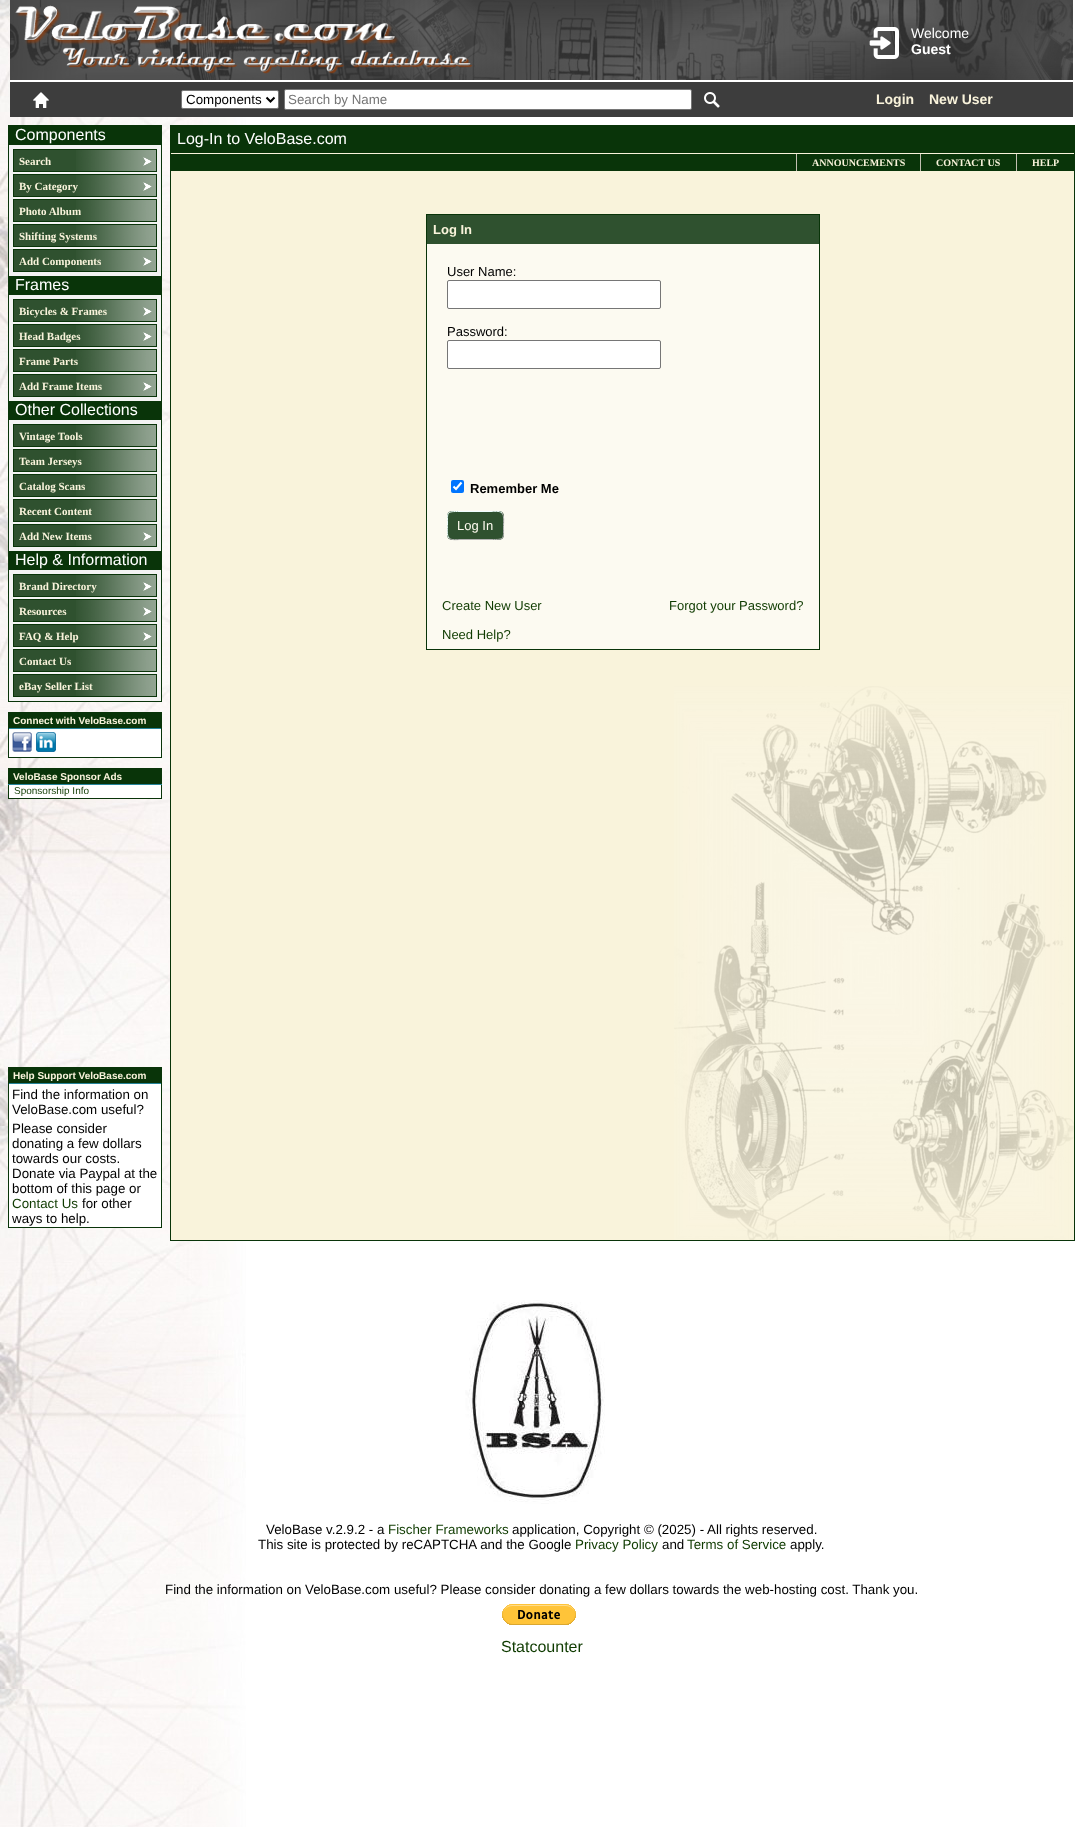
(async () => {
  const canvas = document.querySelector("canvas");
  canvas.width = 1083;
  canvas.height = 1827;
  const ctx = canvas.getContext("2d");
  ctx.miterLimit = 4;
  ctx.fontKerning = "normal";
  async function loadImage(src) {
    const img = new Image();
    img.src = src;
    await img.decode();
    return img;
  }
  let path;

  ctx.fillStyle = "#ffffff";
  ctx.fillRect(0, 0, 1083, 1827);
  ctx.drawImage(await loadImage("img/1.png"), 0, 0, 246, 1827);
  ctx.drawImage(await loadImage("img/2.png"), 10, 0, 1063, 80);
  ctx.drawImage(await loadImage("img/3.png"), 15, 5, 458, 69);
  ctx.drawImage(await loadImage("img/4.png"), 869, 27, 30, 32);
  ctx.fillStyle = "#3d3d3d";
  ctx.fillRect(10, 82, 1063, 35);
  ctx.fillStyle = "#ffffff";
  ctx.fillRect(10, 80, 228, 2);
  ctx.drawImage(await loadImage("img/5.png"), 33, 92, 16, 16);
  ctx.beginPath();
  ctx.roundRect(181.5, 90.5, 97, 18, 1.5);
  ctx.fill();
  ctx.strokeStyle = "#767676";
  ctx.stroke();
  path = new Path2D("M266.5 97.5L270.5 101.5L274.5 97.5");
  ctx.strokeStyle = "#000000";
  ctx.lineWidth = 2;
  ctx.stroke(path);
  ctx.beginPath();
  ctx.roundRect(284.5, 89.5, 407, 20, 1.5);
  ctx.fill();
  ctx.strokeStyle = "#767676";
  ctx.lineWidth = 1;
  ctx.stroke();
  ctx.drawImage(await loadImage("img/6.png"), 704, 92, 16, 16);
  ctx.fillStyle = "#f3f3f3";
  ctx.fillRect(9, 145, 152, 556);
  ctx.strokeStyle = "#093409";
  ctx.strokeRect(8.5, 125.5, 153, 576);
  ctx.fillStyle = "#093409";
  ctx.fillRect(9, 126, 152, 19);
  ctx.fillStyle = "#2f512f";
  ctx.fillRect(14, 150, 142, 21);
  ctx.drawImage(await loadImage("img/7.png"), 76, 150, 80, 21);
  ctx.strokeRect(13.5, 149.5, 143, 22);
  ctx.drawImage(await loadImage("img/8.png"), 143, 157, 9, 9);
  ctx.fillRect(14, 175, 142, 21);
  ctx.drawImage(await loadImage("img/7.png"), 76, 175, 80, 21);
  ctx.strokeRect(13.5, 174.5, 143, 22);
  ctx.drawImage(await loadImage("img/8.png"), 143, 182, 9, 9);
  ctx.fillRect(14, 200, 142, 21);
  ctx.drawImage(await loadImage("img/7.png"), 76, 200, 80, 21);
  ctx.strokeRect(13.5, 199.5, 143, 22);
  ctx.fillRect(14, 225, 142, 21);
  ctx.drawImage(await loadImage("img/7.png"), 76, 225, 80, 21);
  ctx.strokeRect(13.5, 224.5, 143, 22);
  ctx.fillRect(14, 250, 142, 21);
  ctx.drawImage(await loadImage("img/7.png"), 76, 250, 80, 21);
  ctx.strokeRect(13.5, 249.5, 143, 22);
  ctx.drawImage(await loadImage("img/8.png"), 143, 257, 9, 9);
  ctx.fillStyle = "#093409";
  ctx.fillRect(9, 276, 152, 19);
  ctx.fillStyle = "#2f512f";
  ctx.fillRect(14, 300, 142, 21);
  ctx.drawImage(await loadImage("img/7.png"), 76, 300, 80, 21);
  ctx.strokeRect(13.5, 299.5, 143, 22);
  ctx.drawImage(await loadImage("img/8.png"), 143, 307, 9, 9);
  ctx.fillRect(14, 325, 142, 21);
  ctx.drawImage(await loadImage("img/7.png"), 76, 325, 80, 21);
  ctx.strokeRect(13.5, 324.5, 143, 22);
  ctx.drawImage(await loadImage("img/8.png"), 143, 332, 9, 9);
  ctx.fillRect(14, 350, 142, 21);
  ctx.drawImage(await loadImage("img/7.png"), 76, 350, 80, 21);
  ctx.strokeRect(13.5, 349.5, 143, 22);
  ctx.fillRect(14, 375, 142, 21);
  ctx.drawImage(await loadImage("img/7.png"), 76, 375, 80, 21);
  ctx.strokeRect(13.5, 374.5, 143, 22);
  ctx.drawImage(await loadImage("img/8.png"), 143, 382, 9, 9);
  ctx.fillStyle = "#093409";
  ctx.fillRect(9, 401, 152, 19);
  ctx.fillStyle = "#2f512f";
  ctx.fillRect(14, 425, 142, 21);
  ctx.drawImage(await loadImage("img/7.png"), 76, 425, 80, 21);
  ctx.strokeRect(13.5, 424.5, 143, 22);
  ctx.fillRect(14, 450, 142, 21);
  ctx.drawImage(await loadImage("img/7.png"), 76, 450, 80, 21);
  ctx.strokeRect(13.5, 449.5, 143, 22);
  ctx.fillRect(14, 475, 142, 21);
  ctx.drawImage(await loadImage("img/7.png"), 76, 475, 80, 21);
  ctx.strokeRect(13.5, 474.5, 143, 22);
  ctx.fillRect(14, 500, 142, 21);
  ctx.drawImage(await loadImage("img/7.png"), 76, 500, 80, 21);
  ctx.strokeRect(13.5, 499.5, 143, 22);
  ctx.fillRect(14, 525, 142, 21);
  ctx.drawImage(await loadImage("img/7.png"), 76, 525, 80, 21);
  ctx.strokeRect(13.5, 524.5, 143, 22);
  ctx.drawImage(await loadImage("img/8.png"), 143, 532, 9, 9);
  ctx.fillStyle = "#093409";
  ctx.fillRect(9, 551, 152, 19);
  ctx.fillStyle = "#2f512f";
  ctx.fillRect(14, 575, 142, 21);
  ctx.drawImage(await loadImage("img/7.png"), 76, 575, 80, 21);
  ctx.strokeRect(13.5, 574.5, 143, 22);
  ctx.drawImage(await loadImage("img/8.png"), 143, 582, 9, 9);
  ctx.fillRect(14, 600, 142, 21);
  ctx.drawImage(await loadImage("img/7.png"), 76, 600, 80, 21);
  ctx.strokeRect(13.5, 599.5, 143, 22);
  ctx.drawImage(await loadImage("img/8.png"), 143, 607, 9, 9);
  ctx.fillRect(14, 625, 142, 21);
  ctx.drawImage(await loadImage("img/7.png"), 76, 625, 80, 21);
  ctx.strokeRect(13.5, 624.5, 143, 22);
  ctx.drawImage(await loadImage("img/8.png"), 143, 632, 9, 9);
  ctx.fillRect(14, 650, 142, 21);
  ctx.drawImage(await loadImage("img/7.png"), 76, 650, 80, 21);
  ctx.strokeRect(13.5, 649.5, 143, 22);
  ctx.fillRect(14, 675, 142, 21);
  ctx.drawImage(await loadImage("img/7.png"), 76, 675, 80, 21);
  ctx.strokeRect(13.5, 674.5, 143, 22);
  ctx.fillStyle = "#ffffff";
  ctx.fillRect(9, 729, 152, 28);
  ctx.strokeRect(8.5, 712.5, 153, 45);
  ctx.fillStyle = "#093409";
  ctx.fillRect(9, 713, 152, 15);
  ctx.fillStyle = "#25849a";
  ctx.fillRect(9, 728, 152, 1);
  ctx.drawImage(await loadImage("img/9.png"), 12, 732, 20, 20);
  ctx.drawImage(await loadImage("img/10.png"), 36, 732, 20, 20);
  for (const [x, y, w, h, color] of [
    [9, 785, 152, 13, "#ffffff"],
    [8, 768, 154, 1, "#093409"],
    [161, 768, 1, 31, "#093409"],
    [8, 798, 154, 1, "#093409"],
    [8, 768, 1, 31, "#093409"],
    [9, 769, 152, 15, "#093409"],
    [8, 784, 154, 1, "#25849a"],
    [9, 1084, 152, 143, "#ffffff"],
  ]) {
    ctx.fillStyle = color;
    ctx.fillRect(x, y, w, h);
  }
  ctx.strokeRect(8.5, 1067.5, 153, 160);
  for (const [x, y, w, h, color] of [
    [9, 1068, 152, 15, "#093409"],
    [9, 1083, 152, 1, "#25849a"],
    [171, 171, 903, 1069, "#f9f3db"],
  ]) {
    ctx.fillStyle = color;
    ctx.fillRect(x, y, w, h);
  }
  ctx.drawImage(await loadImage("img/11.png"), 674, 686, 400, 554);
  ctx.strokeRect(170.5, 125.5, 904, 1115);
  for (const [x, y, w, h, color] of [
    [171, 126, 903, 45, "#093409"],
    [171, 153, 903, 1, "#f9f3db"],
    [796, 154, 1, 17, "#c2c0b2"],
    [920, 154, 1, 17, "#c2c0b2"],
    [1016, 154, 1, 17, "#c2c0b2"],
    [427, 244, 392, 405, "#fcfaf1"],
  ]) {
    ctx.fillStyle = color;
    ctx.fillRect(x, y, w, h);
  }
  ctx.strokeRect(426.5, 214.5, 393, 435);
  ctx.fillStyle = "#2f512f";
  ctx.fillRect(427, 215, 392, 29);
  ctx.fillStyle = "#ffffff";
  ctx.beginPath();
  ctx.roundRect(447.5, 280.5, 213, 28, 1.5);
  ctx.fill();
  ctx.strokeStyle = "#767676";
  ctx.stroke();
  ctx.beginPath();
  ctx.roundRect(447.5, 340.5, 213, 28, 1.5);
  ctx.fill();
  ctx.stroke();
  ctx.fillStyle = "#0075ff";
  ctx.beginPath();
  ctx.roundRect(451, 480, 13, 13, 2);
  ctx.fill();
  path = new Path2D("M453.5 486.5L456 489L461.5 482.5");
  ctx.strokeStyle = "#ffffff";
  ctx.lineWidth = 2.1;
  ctx.stroke(path);
  ctx.fillStyle = "#2f512f";
  ctx.beginPath();
  ctx.roundRect(447, 511, 57, 29, 5);
  ctx.fill();
  path = new Path2D("M502 513C504.5 515.5 503.5 522.5 503.5 525.5C503.5 539.5 505 539.5 491 539.5H460C457.5 539.5 451.5 540.5 449 538");
  ctx.strokeStyle = "#b2b2b2";
  ctx.lineWidth = 1;
  ctx.stroke(path);
  path = new Path2D("M449 538C446.5 535.5 447.5 528.5 447.5 525.5C447.5 511.5 446 511.5 460 511.5H491C493.5 511.5 499.5 510.5 502 513");
  ctx.strokeStyle = "#f0ffff";
  ctx.stroke(path);
  ctx.drawImage(await loadImage("img/12.png"), 465, 1300, 140, 204);
  ctx.drawImage(await loadImage("img/13.png"), 502, 1604, 74, 21);
  ctx.font = "14px Liberation Sans";
  ctx.fillStyle = "#ffffff";
  ctx.fillText("Welcome", 911, 38);
  ctx.font = "bold 14px Liberation Sans";
  ctx.fillText("Guest", 911, 54);
  ctx.font = "13.33px Liberation Sans";
  ctx.fillStyle = "#000000";
  ctx.fillText("Components", 186, 104);
  ctx.fillStyle = "#757575";
  ctx.fillText("Search by Name", 288, 104);
  ctx.font = "bold 14px Liberation Sans";
  ctx.fillStyle = "#f9f3db";
  ctx.fillText("Login", 876, 104);
  ctx.fillText("New User", 929, 104);
  ctx.font = "16px Liberation Sans";
  ctx.fillStyle = "#ffffff";
  ctx.fillText("Components", 15, 140);
  ctx.font = "bold 11px Liberation Serif";
  ctx.fillStyle = "#f9f3db";
  for (const [text, x, y] of [
    ["Search", 19, 165],
    ["By Category", 19, 190],
    ["Photo Album", 19, 215],
    ["Shifting Systems", 19, 240],
    ["Add Components", 19, 265],
  ]) {
    ctx.fillText(text, x, y);
  }
  ctx.font = "16px Liberation Sans";
  ctx.fillStyle = "#ffffff";
  ctx.fillText("Frames", 15, 290);
  ctx.font = "bold 11px Liberation Serif";
  ctx.fillStyle = "#f9f3db";
  for (const [text, x, y] of [
    ["Bicycles & Frames", 19, 315],
    ["Head Badges", 19, 340],
    ["Frame Parts", 19, 365],
    ["Add Frame Items", 19, 390],
  ]) {
    ctx.fillText(text, x, y);
  }
  ctx.font = "16px Liberation Sans";
  ctx.fillStyle = "#ffffff";
  ctx.fillText("Other Collections", 15, 415);
  ctx.font = "bold 11px Liberation Serif";
  ctx.fillStyle = "#f9f3db";
  for (const [text, x, y] of [
    ["Vintage Tools", 19, 440],
    ["Team Jerseys", 19, 465],
    ["Catalog Scans", 19, 490],
    ["Recent Content", 19, 515],
    ["Add New Items", 19, 540],
  ]) {
    ctx.fillText(text, x, y);
  }
  ctx.font = "16px Liberation Sans";
  ctx.fillStyle = "#ffffff";
  ctx.fillText("Help & Information", 15, 565);
  ctx.font = "bold 11px Liberation Serif";
  ctx.fillStyle = "#f9f3db";
  for (const [text, x, y] of [
    ["Brand Directory", 19, 590],
    ["Resources", 19, 615],
    ["FAQ & Help", 19, 640],
    ["Contact Us", 19, 665],
    ["eBay Seller List", 19, 690],
  ]) {
    ctx.fillText(text, x, y);
  }
  ctx.font = "bold 10px Liberation Sans";
  ctx.fillText("Connect with VeloBase.com", 13, 724);
  ctx.fillText("VeloBase Sponsor Ads", 13, 780);
  ctx.font = "10px Liberation Sans";
  ctx.fillStyle = "#0f3b00";
  ctx.fillText("Sponsorship Info", 14, 794);
  ctx.font = "bold 10px Liberation Sans";
  ctx.fillStyle = "#f9f3db";
  ctx.fillText("Help Support VeloBase.com", 13, 1079);
  ctx.font = "13.33px Liberation Sans";
  ctx.fillStyle = "#000000";
  for (const [text, x, y] of [
    ["Find the information on", 12, 1099],
    ["VeloBase.com useful?", 12, 1114],
    ["Please consider", 12, 1133],
    ["donating a few dollars", 12, 1148],
    ["towards our costs.", 12, 1163],
    ["Donate via Paypal at the", 12, 1178],
    ["bottom of this page or", 12, 1193],
  ]) {
    ctx.fillText(text, x, y);
  }
  ctx.fillStyle = "#0f3b00";
  ctx.fillText("Contact Us", 12, 1208);
  ctx.fillStyle = "#000000";
  ctx.fillText("for other", 82, 1208);
  ctx.fillText("ways to help.", 12, 1223);
  ctx.font = "16px Liberation Sans";
  ctx.fillStyle = "#ffffff";
  ctx.fillText("Log-In to VeloBase.com", 177, 144);
  ctx.font = "bold 10px Liberation Serif";
  ctx.fillStyle = "#f9f3db";
  for (const [text, x, y] of [
    ["ANNOUNCEMENTS", 812, 166],
    ["CONTACT US", 936, 166],
    ["HELP", 1032, 166],
  ]) {
    ctx.fillText(text, x, y);
  }
  ctx.font = "bold 13px Liberation Sans";
  ctx.fillText("Log In", 433, 234);
  ctx.font = "13px Liberation Sans";
  ctx.fillStyle = "#000000";
  ctx.fillText("User Name:", 447, 276);
  ctx.fillText("Password:", 447, 336);
  ctx.font = "bold 13px Liberation Sans";
  ctx.fillText("Remember Me", 470, 493);
  ctx.font = "13px Liberation Sans";
  ctx.fillStyle = "#fcf9ed";
  ctx.fillText("Log In", 457, 530);
  ctx.fillStyle = "#0f3b00";
  for (const [text, x, y] of [
    ["Create New User", 442, 610],
    ["Forgot your Password?", 669, 610],
    ["Need Help?", 442, 639],
  ]) {
    ctx.fillText(text, x, y);
  }
  ctx.font = "13.33px Liberation Sans";
  ctx.fillStyle = "#000000";
  ctx.fillText("VeloBase v.2.9.2 - a", 266, 1534);
  ctx.fillStyle = "#0f3b00";
  ctx.fillText("Fischer Frameworks", 388, 1534);
  ctx.fillStyle = "#000000";
  ctx.fillText("application, Copyright © (2025) - All rights reserved.", 512, 1534);
  ctx.fillText("This site is protected by reCAPTCHA and the Google", 258, 1549);
  ctx.fillStyle = "#0f3b00";
  ctx.fillText("Privacy Policy", 575, 1549);
  ctx.fillStyle = "#000000";
  ctx.fillText("and", 662, 1549);
  ctx.fillStyle = "#0f3b00";
  ctx.fillText("Terms of Service", 687, 1549);
  ctx.fillStyle = "#000000";
  ctx.fillText("apply.", 790, 1549);
  ctx.fillText("Find the information on VeloBase.com useful? Please consider donating a few dollars towards the web-hosting cost. Thank you.", 165, 1594);
  ctx.font = "16px Liberation Sans";
  ctx.fillStyle = "#0f3b00";
  ctx.fillText("Statcounter", 501, 1652);
})();
